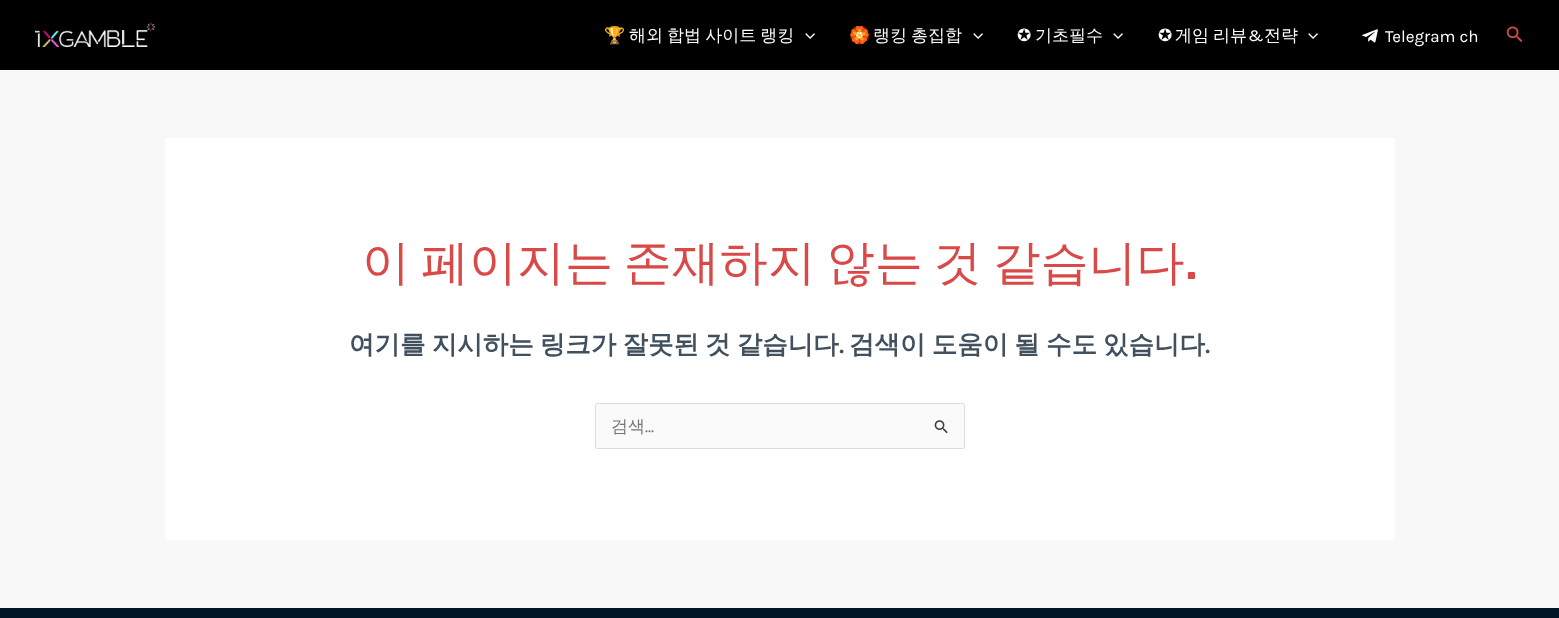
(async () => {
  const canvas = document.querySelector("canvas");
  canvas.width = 1559;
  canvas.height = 618;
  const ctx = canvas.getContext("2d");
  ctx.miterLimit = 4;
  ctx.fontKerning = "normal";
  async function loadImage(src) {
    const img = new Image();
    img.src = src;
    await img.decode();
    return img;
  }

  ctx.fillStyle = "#f9f8f8";
  ctx.fillRect(0, 0, 1559, 618);
  ctx.fillStyle = "#000000";
  ctx.fillRect(0, 0, 1559, 70);
  ctx.drawImage(await loadImage("img/1.png"), 35, 23, 120, 24);
  ctx.drawImage(await loadImage("img/2.png"), 805, 33, 10, 6);
  ctx.drawImage(await loadImage("img/2.png"), 973, 33, 10, 6);
  ctx.drawImage(await loadImage("img/2.png"), 1113, 33, 10, 6);
  ctx.drawImage(await loadImage("img/2.png"), 1308, 33, 10, 6);
  ctx.drawImage(await loadImage("img/3.png"), 1362, 29, 16, 14);
  ctx.drawImage(await loadImage("img/4.png"), 1506, 26, 16, 17);
  ctx.fillStyle = "#ffffff";
  ctx.fillRect(165, 138, 1230, 402);
  ctx.fillStyle = "#fafafa";
  ctx.beginPath();
  ctx.roundRect(595.5, 403.5, 369, 45, 1.5);
  ctx.fill();
  ctx.strokeStyle = "#dddddd";
  ctx.stroke();
  ctx.drawImage(await loadImage("img/5.png"), 934, 420, 14, 14);
  ctx.fillStyle = "#011627";
  ctx.fillRect(0, 608, 1559, 10);
  ctx.font = "17px Noto Color Emoji";
  ctx.fillStyle = "#ffffff";
  ctx.fillText("🏆", 604, 41);
  ctx.wordSpacing = "-1px";
  ctx.font = "500 17px WenQuanYi Zen Hei";
  ctx.fillText("해외 합법 사이트 랭킹", 629, 41);
  ctx.wordSpacing = "0px";
  ctx.font = "17px Noto Color Emoji";
  ctx.fillText("🏵️", 849, 41);
  ctx.wordSpacing = "-1px";
  ctx.font = "500 17px WenQuanYi Zen Hei";
  ctx.fillText("랭킹 총집합", 873, 41);
  ctx.wordSpacing = "0px";
  ctx.font = "17px DejaVu Sans";
  ctx.fillText("✪", 1017, 41);
  ctx.font = "500 17px WenQuanYi Zen Hei";
  ctx.fillText("기초필수", 1035, 41);
  ctx.font = "17px DejaVu Sans";
  ctx.fillText("✪", 1158, 41);
  ctx.wordSpacing = "-1px";
  ctx.font = "500 17px WenQuanYi Zen Hei";
  ctx.fillText("게임 리뷰", 1175, 41);
  ctx.wordSpacing = "0px";
  ctx.font = "17px Karla";
  ctx.fillText("&", 1248, 41);
  ctx.font = "500 17px WenQuanYi Zen Hei";
  ctx.fillText("전략", 1264, 41);
  ctx.font = "17px Karla";
  ctx.fillText("Telegram ch", 1385, 42);
  ctx.wordSpacing = "-3.5px";
  ctx.font = "500 48px WenQuanYi Zen Hei";
  ctx.fillStyle = "#d94948";
  ctx.fillText("이 페이지는 존재하지 않는 것 같습니다", 362, 279);
  ctx.wordSpacing = "0px";
  ctx.font = "300 48px Rubik";
  ctx.fillText(".", 1185, 279);
  ctx.wordSpacing = "-1.5px";
  ctx.font = "bold 25.5px WenQuanYi Zen Hei";
  ctx.fillStyle = "#41505e";
  ctx.fillText("여기를 지시하는 링크가 잘못된 것 같습니다", 349, 353);
  ctx.wordSpacing = "0px";
  ctx.font = "bold 25.5px Karla";
  ctx.fillText(".", 839, 353);
  ctx.wordSpacing = "-1.5px";
  ctx.font = "bold 25.5px WenQuanYi Zen Hei";
  ctx.fillText("검색이 도움이 될 수도 있습니다", 849, 353);
  ctx.wordSpacing = "0px";
  ctx.font = "bold 25.5px Karla";
  ctx.fillText(".", 1205, 353);
  ctx.font = "500 17px WenQuanYi Zen Hei";
  ctx.fillStyle = "#757575";
  ctx.fillText("검색", 611, 432);
  ctx.font = "17px Karla";
  ctx.fillText("...", 645, 432);
})();
